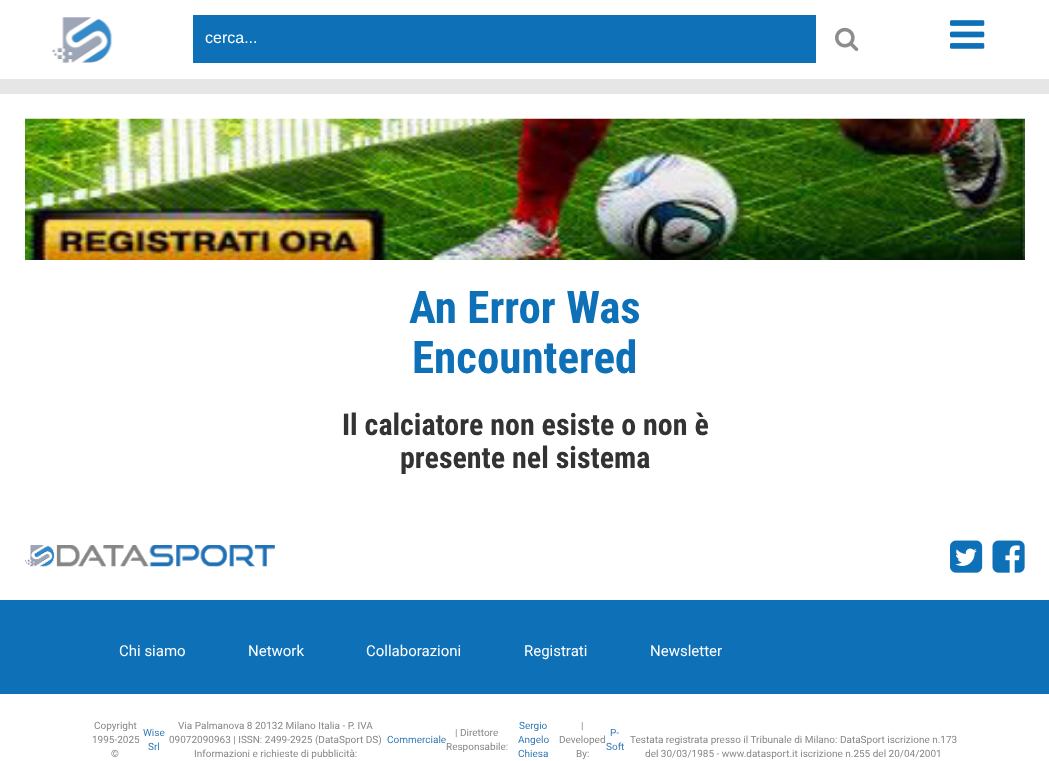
(async () => {
  const canvas = document.querySelector("canvas");
  canvas.width = 1049;
  canvas.height = 761;
  const ctx = canvas.getContext("2d");
  ctx.miterLimit = 4;
  ctx.fontKerning = "normal";
  async function loadImage(src) {
    const img = new Image();
    img.src = src;
    await img.decode();
    return img;
  }

  ctx.fillStyle = "#e7e6e6";
  ctx.fillRect(0, 0, 1049, 761);
  ctx.fillStyle = "#ffffff";
  ctx.fillRect(0, 0, 1049, 79);
  ctx.drawImage(await loadImage("img/1.png"), 52, 17, 61, 46);
  ctx.fillStyle = "#0e71b8";
  ctx.fillRect(193, 15, 623, 48);
  ctx.drawImage(await loadImage("img/2.png"), 835, 27, 24, 24);
  ctx.drawImage(await loadImage("img/3.png"), 950, 20, 35, 29);
  ctx.fillStyle = "#ffffff";
  ctx.fillRect(0, 94, 1049, 506);
  ctx.drawImage(await loadImage("img/4.png"), 25, 118, 1000, 142);
  ctx.drawImage(await loadImage("img/5.png"), 25, 545, 250, 22);
  ctx.drawImage(await loadImage("img/6.png"), 950, 540, 33, 33);
  ctx.drawImage(await loadImage("img/7.png"), 992, 540, 33, 33);
  ctx.fillStyle = "#0e71b8";
  ctx.fillRect(0, 600, 1049, 94);
  ctx.fillStyle = "#ffffff";
  ctx.fillRect(0, 694, 1049, 67);
  ctx.font = "16px Liberation Sans";
  ctx.fillText("cerca...", 205, 43);
  ctx.font = "bold 45px Roboto Condensed";
  ctx.fillStyle = "#0e71b8";
  ctx.fillText("An Error Was", 409, 323);
  ctx.fillText("Encountered", 412, 373);
  ctx.font = "bold 30px Roboto Condensed";
  ctx.fillStyle = "#333333";
  ctx.fillText("Il calciatore non esiste o non è", 342, 435);
  ctx.fillText("presente nel sistema", 400, 468);
  ctx.font = "15px Roboto";
  ctx.fillStyle = "#ffffff";
  for (const [text, x, y] of [
    ["Chi siamo", 119, 656],
    ["Network", 248, 656],
    ["Collaborazioni", 366, 656],
    ["Registrati", 524, 656],
    ["Newsletter", 650, 656],
  ]) {
    ctx.fillText(text, x, y);
  }
  ctx.font = "10px Roboto";
  ctx.fillStyle = "#878786";
  ctx.fillText("Copyright", 94, 729);
  ctx.fillText("Via Palmanova 8 20132 Milano Italia - P. IVA", 178, 729);
  ctx.fillStyle = "#337ab7";
  for (const [text, x, y] of [
    ["Sergio", 519, 729],
    ["Angelo", 518, 743],
    ["Chiesa", 518, 757],
  ]) {
    ctx.fillText(text, x, y);
  }
  ctx.fillStyle = "#878786";
  ctx.fillText("|", 581, 729);
  ctx.fillText("1995-2025", 92, 743);
  ctx.fillStyle = "#337ab7";
  ctx.fillText("Wise", 143, 736);
  ctx.fillText("Srl", 148, 750);
  ctx.fillStyle = "#878786";
  ctx.fillText("09072090963 | ISSN: 2499-2925 (DataSport DS)", 169, 743);
  ctx.fillStyle = "#337ab7";
  ctx.fillText("Commerciale", 387, 743);
  ctx.fillStyle = "#878786";
  ctx.fillText("| Direttore", 455, 736);
  ctx.fillText("Developed", 559, 743);
  ctx.fillStyle = "#337ab7";
  ctx.fillText("P-", 610, 736);
  ctx.fillText("Soft", 606, 750);
  ctx.fillStyle = "#878786";
  for (const [text, x, y] of [
    ["Testata registrata presso il Tribunale di Milano: DataSport iscrizione n.173", 630, 743],
    ["Responsabile:", 446, 750],
    ["©", 111, 757],
    ["Informazioni e richieste di pubblicità:", 194, 757],
    ["By:", 576, 757],
    ["del 30/03/1985 - www.datasport.it iscrizione n.255 del 20/04/2001", 645, 757],
  ]) {
    ctx.fillText(text, x, y);
  }
})();
